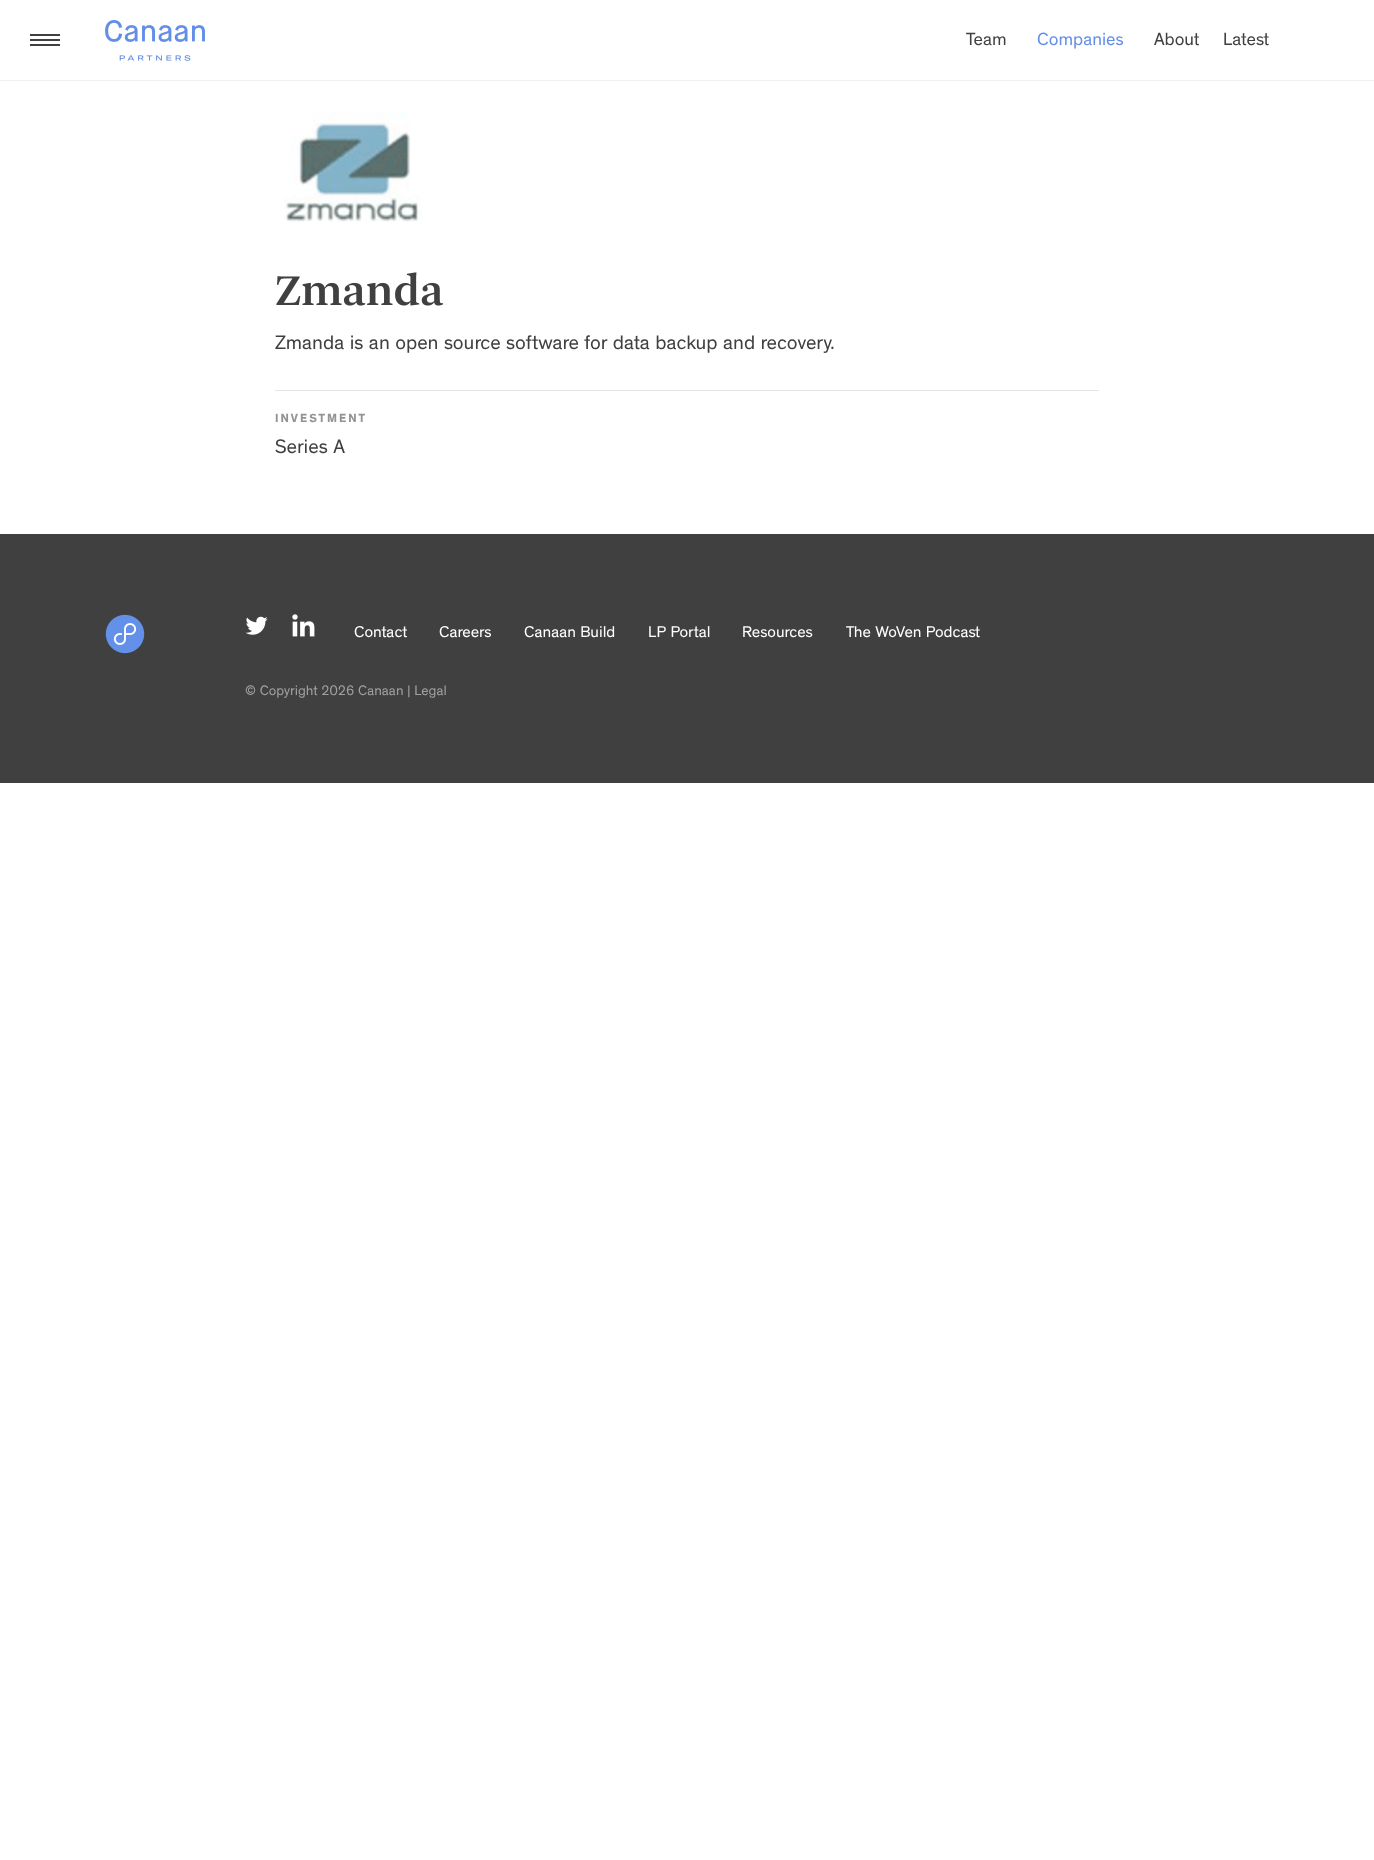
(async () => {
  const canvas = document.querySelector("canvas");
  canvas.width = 1374;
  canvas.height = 1860;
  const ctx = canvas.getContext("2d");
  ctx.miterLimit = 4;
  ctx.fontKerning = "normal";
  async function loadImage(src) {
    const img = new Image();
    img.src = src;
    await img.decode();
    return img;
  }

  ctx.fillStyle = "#ffffff";
  ctx.fillRect(0, 0, 1374, 1860);
  for (const [x, y, w, h, color] of [
    [30, 39, 30, 2, "#404040"],
    [30, 34, 30, 2, "#404040"],
    [30, 44, 30, 2, "#404040"],
  ]) {
    ctx.fillStyle = color;
    ctx.fillRect(x, y, w, h);
  }
  ctx.drawImage(await loadImage("img/1.png"), 105, 20, 100, 41);
  ctx.fillStyle = "#f2f2f2";
  ctx.fillRect(0, 80, 1374, 1);
  ctx.drawImage(await loadImage("img/2.png"), 284, 112, 138, 110);
  ctx.drawImage(await loadImage("img/3.png"), 276, 272, 168, 34);
  ctx.fillStyle = "#e4e4e4";
  ctx.fillRect(275, 390, 824, 1);
  ctx.fillStyle = "#404040";
  ctx.fillRect(0, 534, 1374, 249);
  ctx.drawImage(await loadImage("img/4.png"), 105, 614, 40, 40);
  ctx.drawImage(await loadImage("img/5.png"), 245, 616, 23, 19);
  ctx.drawImage(await loadImage("img/6.png"), 292, 614, 23, 23);
  ctx.font = "18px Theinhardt";
  ctx.fillText("Team", 966, 45);
  ctx.fillStyle = "#638ee8";
  ctx.fillText("Companies", 1037, 45);
  ctx.fillStyle = "#404040";
  ctx.fillText("About", 1154, 45);
  ctx.fillText("Latest", 1223, 45);
  ctx.font = "20px Theinhardt";
  ctx.fillText("Zmanda is an open source software for data backup and recovery.", 275, 349);
  ctx.letterSpacing = "2px";
  ctx.font = "bold 12px Theinhardt";
  ctx.fillStyle = "#939393";
  ctx.fillText("INVESTMENT", 275, 422);
  ctx.letterSpacing = "0px";
  ctx.font = "20px Theinhardt";
  ctx.fillStyle = "#404040";
  ctx.fillText("Series A", 275, 453);
  ctx.font = "16px Theinhardt";
  ctx.fillStyle = "#ffffff";
  for (const [text, x, y] of [
    ["Contact", 354, 637],
    ["Careers", 439, 637],
    ["Canaan Build", 524, 637],
    ["LP Portal", 648, 637],
    ["Resources", 742, 637],
    ["The WoVen Podcast", 846, 637],
  ]) {
    ctx.fillText(text, x, y);
  }
  ctx.font = "14px Theinhardt";
  ctx.fillStyle = "#a0a0a0";
  ctx.fillText("© Copyright 2026 Canaan | Legal", 245, 695);
})();
